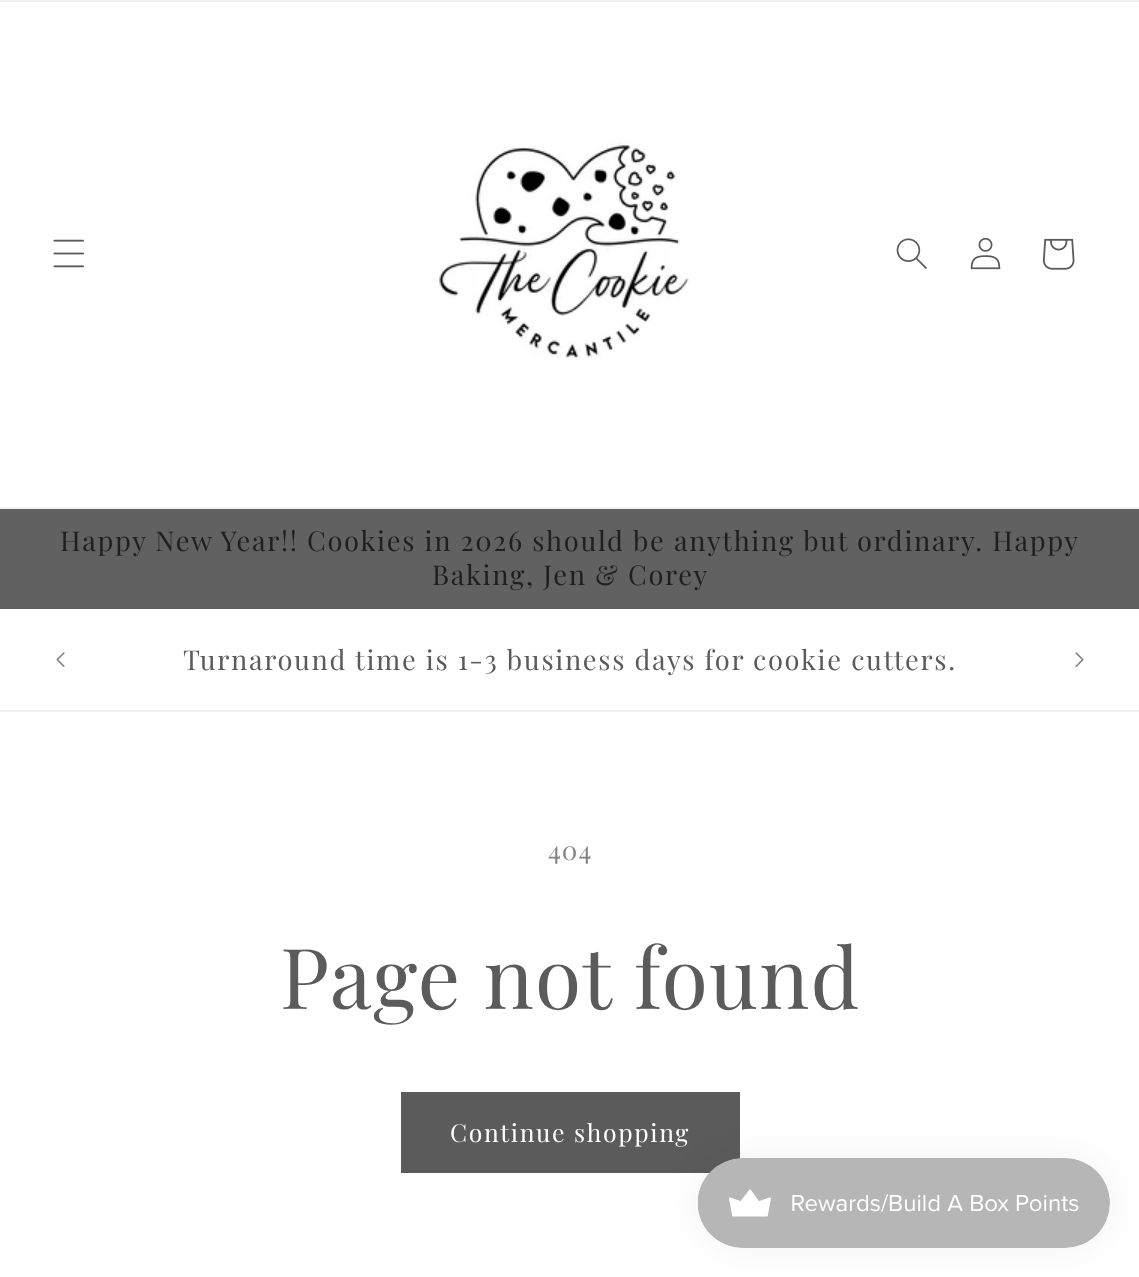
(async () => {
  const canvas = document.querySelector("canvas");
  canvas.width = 1139;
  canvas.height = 1277;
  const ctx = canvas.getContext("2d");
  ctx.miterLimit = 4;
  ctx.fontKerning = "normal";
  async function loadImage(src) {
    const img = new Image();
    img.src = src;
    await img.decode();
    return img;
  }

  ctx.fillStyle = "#ffffff";
  ctx.fillRect(0, 0, 1139, 1277);
  ctx.fillStyle = "#f2f2f2";
  ctx.fillRect(0, 0, 1139, 2);
  ctx.fillRect(0, 507, 1139, 2);
  ctx.drawImage(await loadImage("img/1.png"), 53, 239, 31, 29);
  ctx.drawImage(await loadImage("img/2.png"), 437, 142, 252, 216);
  ctx.drawImage(await loadImage("img/3.png"), 896, 238, 31, 31);
  ctx.drawImage(await loadImage("img/4.png"), 970, 237, 31, 33);
  ctx.drawImage(await loadImage("img/5.png"), 1042, 238, 33, 32);
  for (const [x, y, w, h, color] of [
    [0, 509, 1139, 99, "#616161"],
    [0, 608, 1139, 1, "#5c5c5c"],
    [0, 710, 1139, 2, "#f2f2f2"],
  ]) {
    ctx.fillStyle = color;
    ctx.fillRect(x, y, w, h);
  }
  ctx.drawImage(await loadImage("img/6.png"), 56, 652, 9, 15);
  ctx.drawImage(await loadImage("img/7.png"), 1075, 652, 9, 15);
  ctx.fillStyle = "#5b5b5b";
  ctx.fillRect(401, 1092, 339, 81);
  ctx.fillStyle = "rgba(0, 0, 0, 0.05)";
  ctx.filter = "blur(19px)";
  ctx.beginPath();
  ctx.roundRect(698, 1158, 412, 90, 45);
  ctx.fill();
  ctx.filter = "none";
  ctx.drawImage(await loadImage("img/8.png"), 697, 1158, 413, 90);
  ctx.letterSpacing = "1.65px";
  ctx.font = "27.3px Playfair Display";
  ctx.fillStyle = "#1f1f21";
  ctx.fillText("Happy New Year!! Cookies in 2026 should be anything but ordinary. Happy", 60, 551);
  ctx.fillText("Baking, Jen & Corey", 432, 585);
  ctx.fillStyle = "#5b5b5b";
  ctx.fillText("Turnaround time is 1-3 business days for cookie cutters.", 183, 670);
  ctx.letterSpacing = "1px";
  ctx.font = "26px Playfair Display";
  ctx.fillStyle = "#848484";
  ctx.fillText("404", 548, 860);
  ctx.letterSpacing = "1.25px";
  ctx.font = "84px Playfair Display";
  ctx.fillStyle = "#5b5b5b";
  ctx.fillText("Page not found", 280, 1009);
  ctx.letterSpacing = "1.65px";
  ctx.font = "24.75px Playfair Display";
  ctx.fillStyle = "#ffffff";
  ctx.fillText("Continue shopping", 450, 1142);
})();
